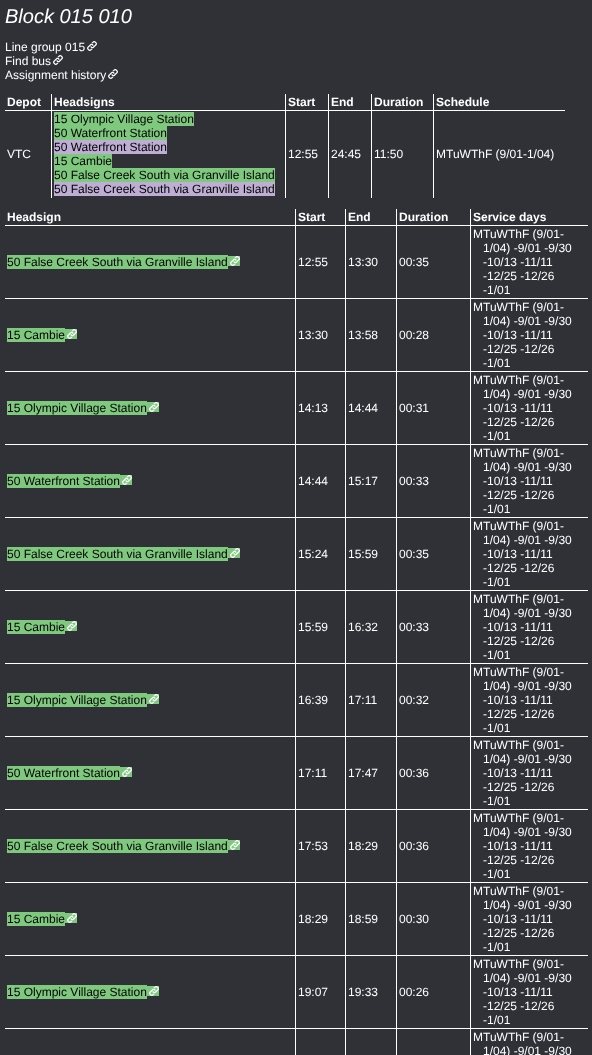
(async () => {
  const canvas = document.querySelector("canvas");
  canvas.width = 592;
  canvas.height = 1055;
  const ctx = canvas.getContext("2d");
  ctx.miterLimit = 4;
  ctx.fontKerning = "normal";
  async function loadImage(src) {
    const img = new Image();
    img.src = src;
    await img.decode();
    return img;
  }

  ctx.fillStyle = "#2f3136";
  ctx.fillRect(0, 0, 592, 1055);
  ctx.drawImage(await loadImage("img/1.png"), 87, 41, 10, 10);
  ctx.drawImage(await loadImage("img/1.png"), 53, 55, 10, 10);
  ctx.drawImage(await loadImage("img/1.png"), 108, 69, 10, 10);
  for (const [x, y, w, h, color] of [
    [433, 110, 1, 88, "#ffffff"],
    [433, 110, 132, 1, "#ffffff"],
    [433, 94, 1, 17, "#ffffff"],
    [371, 110, 1, 88, "#ffffff"],
    [371, 110, 63, 1, "#ffffff"],
    [371, 94, 1, 17, "#ffffff"],
    [328, 110, 1, 88, "#ffffff"],
    [328, 110, 44, 1, "#ffffff"],
    [328, 94, 1, 17, "#ffffff"],
    [285, 110, 1, 88, "#ffffff"],
    [285, 110, 44, 1, "#ffffff"],
    [285, 94, 1, 17, "#ffffff"],
    [51, 110, 1, 88, "#ffffff"],
    [51, 110, 235, 1, "#ffffff"],
    [51, 94, 1, 17, "#ffffff"],
    [5, 110, 47, 1, "#ffffff"],
    [54, 112, 140, 14, "#7fc97f"],
    [54, 126, 113, 14, "#7fc97f"],
    [54, 140, 113, 14, "#beaed4"],
    [54, 154, 58, 14, "#7fc97f"],
    [54, 168, 221, 14, "#7fc97f"],
    [54, 182, 221, 14, "#beaed4"],
    [470, 1028, 1, 27, "#ffffff"],
    [470, 1028, 118, 1, "#ffffff"],
    [470, 955, 1, 74, "#ffffff"],
    [470, 955, 118, 1, "#ffffff"],
    [470, 882, 1, 74, "#ffffff"],
    [470, 882, 118, 1, "#ffffff"],
    [470, 809, 1, 74, "#ffffff"],
    [470, 809, 118, 1, "#ffffff"],
    [470, 736, 1, 74, "#ffffff"],
    [470, 736, 118, 1, "#ffffff"],
    [470, 663, 1, 74, "#ffffff"],
    [470, 663, 118, 1, "#ffffff"],
    [470, 590, 1, 74, "#ffffff"],
    [470, 590, 118, 1, "#ffffff"],
    [470, 517, 1, 74, "#ffffff"],
    [470, 517, 118, 1, "#ffffff"],
    [470, 444, 1, 74, "#ffffff"],
    [470, 444, 118, 1, "#ffffff"],
    [470, 371, 1, 74, "#ffffff"],
    [470, 371, 118, 1, "#ffffff"],
    [470, 298, 1, 74, "#ffffff"],
    [470, 298, 118, 1, "#ffffff"],
    [470, 225, 1, 74, "#ffffff"],
    [470, 225, 118, 1, "#ffffff"],
    [470, 209, 1, 17, "#ffffff"],
    [396, 1028, 1, 27, "#ffffff"],
    [396, 1028, 75, 1, "#ffffff"],
    [396, 955, 1, 74, "#ffffff"],
    [396, 955, 75, 1, "#ffffff"],
    [396, 882, 1, 74, "#ffffff"],
    [396, 882, 75, 1, "#ffffff"],
    [396, 809, 1, 74, "#ffffff"],
    [396, 809, 75, 1, "#ffffff"],
    [396, 736, 1, 74, "#ffffff"],
    [396, 736, 75, 1, "#ffffff"],
    [396, 663, 1, 74, "#ffffff"],
    [396, 663, 75, 1, "#ffffff"],
    [396, 590, 1, 74, "#ffffff"],
    [396, 590, 75, 1, "#ffffff"],
    [396, 517, 1, 74, "#ffffff"],
    [396, 517, 75, 1, "#ffffff"],
    [396, 444, 1, 74, "#ffffff"],
    [396, 444, 75, 1, "#ffffff"],
    [396, 371, 1, 74, "#ffffff"],
    [396, 371, 75, 1, "#ffffff"],
    [396, 298, 1, 74, "#ffffff"],
    [396, 298, 75, 1, "#ffffff"],
    [396, 225, 1, 74, "#ffffff"],
    [396, 225, 75, 1, "#ffffff"],
    [396, 209, 1, 17, "#ffffff"],
    [345, 1028, 1, 27, "#ffffff"],
    [345, 1028, 52, 1, "#ffffff"],
    [345, 955, 1, 74, "#ffffff"],
    [345, 955, 52, 1, "#ffffff"],
    [345, 882, 1, 74, "#ffffff"],
    [345, 882, 52, 1, "#ffffff"],
    [345, 809, 1, 74, "#ffffff"],
    [345, 809, 52, 1, "#ffffff"],
    [345, 736, 1, 74, "#ffffff"],
    [345, 736, 52, 1, "#ffffff"],
    [345, 663, 1, 74, "#ffffff"],
    [345, 663, 52, 1, "#ffffff"],
    [345, 590, 1, 74, "#ffffff"],
    [345, 590, 52, 1, "#ffffff"],
    [345, 517, 1, 74, "#ffffff"],
    [345, 517, 52, 1, "#ffffff"],
    [345, 444, 1, 74, "#ffffff"],
    [345, 444, 52, 1, "#ffffff"],
    [345, 371, 1, 74, "#ffffff"],
    [345, 371, 52, 1, "#ffffff"],
    [345, 298, 1, 74, "#ffffff"],
    [345, 298, 52, 1, "#ffffff"],
    [345, 225, 1, 74, "#ffffff"],
    [345, 225, 52, 1, "#ffffff"],
    [345, 209, 1, 17, "#ffffff"],
    [295, 1028, 1, 27, "#ffffff"],
    [295, 1028, 51, 1, "#ffffff"],
    [295, 955, 1, 74, "#ffffff"],
    [295, 955, 51, 1, "#ffffff"],
    [295, 882, 1, 74, "#ffffff"],
    [295, 882, 51, 1, "#ffffff"],
    [295, 809, 1, 74, "#ffffff"],
    [295, 809, 51, 1, "#ffffff"],
    [295, 736, 1, 74, "#ffffff"],
    [295, 736, 51, 1, "#ffffff"],
    [295, 663, 1, 74, "#ffffff"],
    [295, 663, 51, 1, "#ffffff"],
    [295, 590, 1, 74, "#ffffff"],
    [295, 590, 51, 1, "#ffffff"],
    [295, 517, 1, 74, "#ffffff"],
    [295, 517, 51, 1, "#ffffff"],
    [295, 444, 1, 74, "#ffffff"],
    [295, 444, 51, 1, "#ffffff"],
    [295, 371, 1, 74, "#ffffff"],
    [295, 371, 51, 1, "#ffffff"],
    [295, 298, 1, 74, "#ffffff"],
    [295, 298, 51, 1, "#ffffff"],
    [295, 225, 1, 74, "#ffffff"],
    [295, 225, 51, 1, "#ffffff"],
    [295, 209, 1, 17, "#ffffff"],
    [5, 225, 291, 1, "#ffffff"],
    [5, 298, 291, 1, "#ffffff"],
    [7, 255, 221, 14, "#7fc97f"],
    [228, 256, 12, 10, "#7fc97f"],
  ]) {
    ctx.fillStyle = color;
    ctx.fillRect(x, y, w, h);
  }
  ctx.drawImage(await loadImage("img/2.png"), 230, 256, 10, 10);
  for (const [x, y, w, h, color] of [
    [5, 371, 291, 1, "#ffffff"],
    [7, 328, 58, 14, "#7fc97f"],
    [65, 329, 12, 10, "#7fc97f"],
  ]) {
    ctx.fillStyle = color;
    ctx.fillRect(x, y, w, h);
  }
  ctx.drawImage(await loadImage("img/2.png"), 67, 329, 10, 10);
  for (const [x, y, w, h, color] of [
    [5, 444, 291, 1, "#ffffff"],
    [7, 401, 140, 14, "#7fc97f"],
    [147, 402, 12, 10, "#7fc97f"],
  ]) {
    ctx.fillStyle = color;
    ctx.fillRect(x, y, w, h);
  }
  ctx.drawImage(await loadImage("img/2.png"), 149, 402, 10, 10);
  for (const [x, y, w, h, color] of [
    [5, 517, 291, 1, "#ffffff"],
    [7, 474, 113, 14, "#7fc97f"],
    [120, 475, 12, 10, "#7fc97f"],
  ]) {
    ctx.fillStyle = color;
    ctx.fillRect(x, y, w, h);
  }
  ctx.drawImage(await loadImage("img/2.png"), 122, 475, 10, 10);
  for (const [x, y, w, h, color] of [
    [5, 590, 291, 1, "#ffffff"],
    [7, 547, 221, 14, "#7fc97f"],
    [228, 548, 12, 10, "#7fc97f"],
  ]) {
    ctx.fillStyle = color;
    ctx.fillRect(x, y, w, h);
  }
  ctx.drawImage(await loadImage("img/2.png"), 230, 548, 10, 10);
  for (const [x, y, w, h, color] of [
    [5, 663, 291, 1, "#ffffff"],
    [7, 620, 58, 14, "#7fc97f"],
    [65, 621, 12, 10, "#7fc97f"],
  ]) {
    ctx.fillStyle = color;
    ctx.fillRect(x, y, w, h);
  }
  ctx.drawImage(await loadImage("img/2.png"), 67, 621, 10, 10);
  for (const [x, y, w, h, color] of [
    [5, 736, 291, 1, "#ffffff"],
    [7, 693, 140, 14, "#7fc97f"],
    [147, 694, 12, 10, "#7fc97f"],
  ]) {
    ctx.fillStyle = color;
    ctx.fillRect(x, y, w, h);
  }
  ctx.drawImage(await loadImage("img/2.png"), 149, 694, 10, 10);
  for (const [x, y, w, h, color] of [
    [5, 809, 291, 1, "#ffffff"],
    [7, 766, 113, 14, "#7fc97f"],
    [120, 767, 12, 10, "#7fc97f"],
  ]) {
    ctx.fillStyle = color;
    ctx.fillRect(x, y, w, h);
  }
  ctx.drawImage(await loadImage("img/2.png"), 122, 767, 10, 10);
  for (const [x, y, w, h, color] of [
    [5, 882, 291, 1, "#ffffff"],
    [7, 839, 221, 14, "#7fc97f"],
    [228, 840, 12, 10, "#7fc97f"],
  ]) {
    ctx.fillStyle = color;
    ctx.fillRect(x, y, w, h);
  }
  ctx.drawImage(await loadImage("img/2.png"), 230, 840, 10, 10);
  for (const [x, y, w, h, color] of [
    [5, 955, 291, 1, "#ffffff"],
    [7, 912, 58, 14, "#7fc97f"],
    [65, 913, 12, 10, "#7fc97f"],
  ]) {
    ctx.fillStyle = color;
    ctx.fillRect(x, y, w, h);
  }
  ctx.drawImage(await loadImage("img/2.png"), 67, 913, 10, 10);
  for (const [x, y, w, h, color] of [
    [5, 1028, 291, 1, "#ffffff"],
    [7, 985, 140, 14, "#7fc97f"],
    [147, 986, 12, 10, "#7fc97f"],
  ]) {
    ctx.fillStyle = color;
    ctx.fillRect(x, y, w, h);
  }
  ctx.drawImage(await loadImage("img/2.png"), 149, 986, 10, 10);
  ctx.font = "italic 20px Liberation Sans";
  ctx.fillStyle = "#ffffff";
  ctx.fillText("Block 015 010", 5, 23);
  ctx.font = "12px Liberation Sans";
  for (const [text, x, y] of [
    ["Line group 015", 5, 51],
    ["Find bus", 5, 65],
    ["Assignment history", 5, 79],
  ]) {
    ctx.fillText(text, x, y);
  }
  ctx.font = "bold 12px Liberation Sans";
  for (const [text, x, y] of [
    ["Depot", 7, 106],
    ["Headsigns", 54, 106],
    ["Start", 288, 106],
    ["End", 331, 106],
    ["Duration", 374, 106],
    ["Schedule", 436, 106],
  ]) {
    ctx.fillText(text, x, y);
  }
  ctx.font = "12px Liberation Sans";
  ctx.fillText("VTC", 7, 158);
  ctx.fillStyle = "#000000";
  for (const [text, x, y] of [
    ["15 Olympic Village Station", 54, 123],
    ["50 Waterfront Station", 54, 137],
    ["50 Waterfront Station", 54, 151],
    ["15 Cambie", 54, 165],
    ["50 False Creek South via Granville Island", 54, 179],
    ["50 False Creek South via Granville Island", 54, 193],
  ]) {
    ctx.fillText(text, x, y);
  }
  ctx.fillStyle = "#ffffff";
  for (const [text, x, y] of [
    ["12:55", 288, 158],
    ["24:45", 331, 158],
    ["11:50", 374, 158],
    ["MTuWThF (9/01-1/04)", 436, 158],
  ]) {
    ctx.fillText(text, x, y);
  }
  ctx.font = "bold 12px Liberation Sans";
  for (const [text, x, y] of [
    ["Headsign", 7, 221],
    ["Start", 298, 221],
    ["End", 348, 221],
    ["Duration", 399, 221],
    ["Service days", 473, 221],
  ]) {
    ctx.fillText(text, x, y);
  }
  ctx.font = "12px Liberation Sans";
  ctx.fillStyle = "#000000";
  ctx.fillText("50 False Creek South via Granville Island", 7, 266);
  ctx.fillStyle = "#ffffff";
  for (const [text, x, y] of [
    ["12:55", 298, 266],
    ["13:30", 348, 266],
    ["00:35", 399, 266],
    ["MTuWThF (9/01-", 473, 238],
    ["1/04) -9/01 -9/30", 483, 252],
    ["-10/13 -11/11", 483, 266],
    ["-12/25 -12/26", 483, 280],
    ["-1/01", 483, 294],
  ]) {
    ctx.fillText(text, x, y);
  }
  ctx.fillStyle = "#000000";
  ctx.fillText("15 Cambie", 7, 339);
  ctx.fillStyle = "#ffffff";
  for (const [text, x, y] of [
    ["13:30", 298, 339],
    ["13:58", 348, 339],
    ["00:28", 399, 339],
    ["MTuWThF (9/01-", 473, 311],
    ["1/04) -9/01 -9/30", 483, 325],
    ["-10/13 -11/11", 483, 339],
    ["-12/25 -12/26", 483, 353],
    ["-1/01", 483, 367],
  ]) {
    ctx.fillText(text, x, y);
  }
  ctx.fillStyle = "#000000";
  ctx.fillText("15 Olympic Village Station", 7, 412);
  ctx.fillStyle = "#ffffff";
  for (const [text, x, y] of [
    ["14:13", 298, 412],
    ["14:44", 348, 412],
    ["00:31", 399, 412],
    ["MTuWThF (9/01-", 473, 384],
    ["1/04) -9/01 -9/30", 483, 398],
    ["-10/13 -11/11", 483, 412],
    ["-12/25 -12/26", 483, 426],
    ["-1/01", 483, 440],
  ]) {
    ctx.fillText(text, x, y);
  }
  ctx.fillStyle = "#000000";
  ctx.fillText("50 Waterfront Station", 7, 485);
  ctx.fillStyle = "#ffffff";
  for (const [text, x, y] of [
    ["14:44", 298, 485],
    ["15:17", 348, 485],
    ["00:33", 399, 485],
    ["MTuWThF (9/01-", 473, 457],
    ["1/04) -9/01 -9/30", 483, 471],
    ["-10/13 -11/11", 483, 485],
    ["-12/25 -12/26", 483, 499],
    ["-1/01", 483, 513],
  ]) {
    ctx.fillText(text, x, y);
  }
  ctx.fillStyle = "#000000";
  ctx.fillText("50 False Creek South via Granville Island", 7, 558);
  ctx.fillStyle = "#ffffff";
  for (const [text, x, y] of [
    ["15:24", 298, 558],
    ["15:59", 348, 558],
    ["00:35", 399, 558],
    ["MTuWThF (9/01-", 473, 530],
    ["1/04) -9/01 -9/30", 483, 544],
    ["-10/13 -11/11", 483, 558],
    ["-12/25 -12/26", 483, 572],
    ["-1/01", 483, 586],
  ]) {
    ctx.fillText(text, x, y);
  }
  ctx.fillStyle = "#000000";
  ctx.fillText("15 Cambie", 7, 631);
  ctx.fillStyle = "#ffffff";
  for (const [text, x, y] of [
    ["15:59", 298, 631],
    ["16:32", 348, 631],
    ["00:33", 399, 631],
    ["MTuWThF (9/01-", 473, 603],
    ["1/04) -9/01 -9/30", 483, 617],
    ["-10/13 -11/11", 483, 631],
    ["-12/25 -12/26", 483, 645],
    ["-1/01", 483, 659],
  ]) {
    ctx.fillText(text, x, y);
  }
  ctx.fillStyle = "#000000";
  ctx.fillText("15 Olympic Village Station", 7, 704);
  ctx.fillStyle = "#ffffff";
  for (const [text, x, y] of [
    ["16:39", 298, 704],
    ["17:11", 348, 704],
    ["00:32", 399, 704],
    ["MTuWThF (9/01-", 473, 676],
    ["1/04) -9/01 -9/30", 483, 690],
    ["-10/13 -11/11", 483, 704],
    ["-12/25 -12/26", 483, 718],
    ["-1/01", 483, 732],
  ]) {
    ctx.fillText(text, x, y);
  }
  ctx.fillStyle = "#000000";
  ctx.fillText("50 Waterfront Station", 7, 777);
  ctx.fillStyle = "#ffffff";
  for (const [text, x, y] of [
    ["17:11", 298, 777],
    ["17:47", 348, 777],
    ["00:36", 399, 777],
    ["MTuWThF (9/01-", 473, 749],
    ["1/04) -9/01 -9/30", 483, 763],
    ["-10/13 -11/11", 483, 777],
    ["-12/25 -12/26", 483, 791],
    ["-1/01", 483, 805],
  ]) {
    ctx.fillText(text, x, y);
  }
  ctx.fillStyle = "#000000";
  ctx.fillText("50 False Creek South via Granville Island", 7, 850);
  ctx.fillStyle = "#ffffff";
  for (const [text, x, y] of [
    ["17:53", 298, 850],
    ["18:29", 348, 850],
    ["00:36", 399, 850],
    ["MTuWThF (9/01-", 473, 822],
    ["1/04) -9/01 -9/30", 483, 836],
    ["-10/13 -11/11", 483, 850],
    ["-12/25 -12/26", 483, 864],
    ["-1/01", 483, 878],
  ]) {
    ctx.fillText(text, x, y);
  }
  ctx.fillStyle = "#000000";
  ctx.fillText("15 Cambie", 7, 923);
  ctx.fillStyle = "#ffffff";
  for (const [text, x, y] of [
    ["18:29", 298, 923],
    ["18:59", 348, 923],
    ["00:30", 399, 923],
    ["MTuWThF (9/01-", 473, 895],
    ["1/04) -9/01 -9/30", 483, 909],
    ["-10/13 -11/11", 483, 923],
    ["-12/25 -12/26", 483, 937],
    ["-1/01", 483, 951],
  ]) {
    ctx.fillText(text, x, y);
  }
  ctx.fillStyle = "#000000";
  ctx.fillText("15 Olympic Village Station", 7, 996);
  ctx.fillStyle = "#ffffff";
  for (const [text, x, y] of [
    ["19:07", 298, 996],
    ["19:33", 348, 996],
    ["00:26", 399, 996],
    ["MTuWThF (9/01-", 473, 968],
    ["1/04) -9/01 -9/30", 483, 982],
    ["-10/13 -11/11", 483, 996],
    ["-12/25 -12/26", 483, 1010],
    ["-1/01", 483, 1024],
    ["MTuWThF (9/01-", 473, 1041],
    ["1/04) -9/01 -9/30", 483, 1055],
  ]) {
    ctx.fillText(text, x, y);
  }
})();
